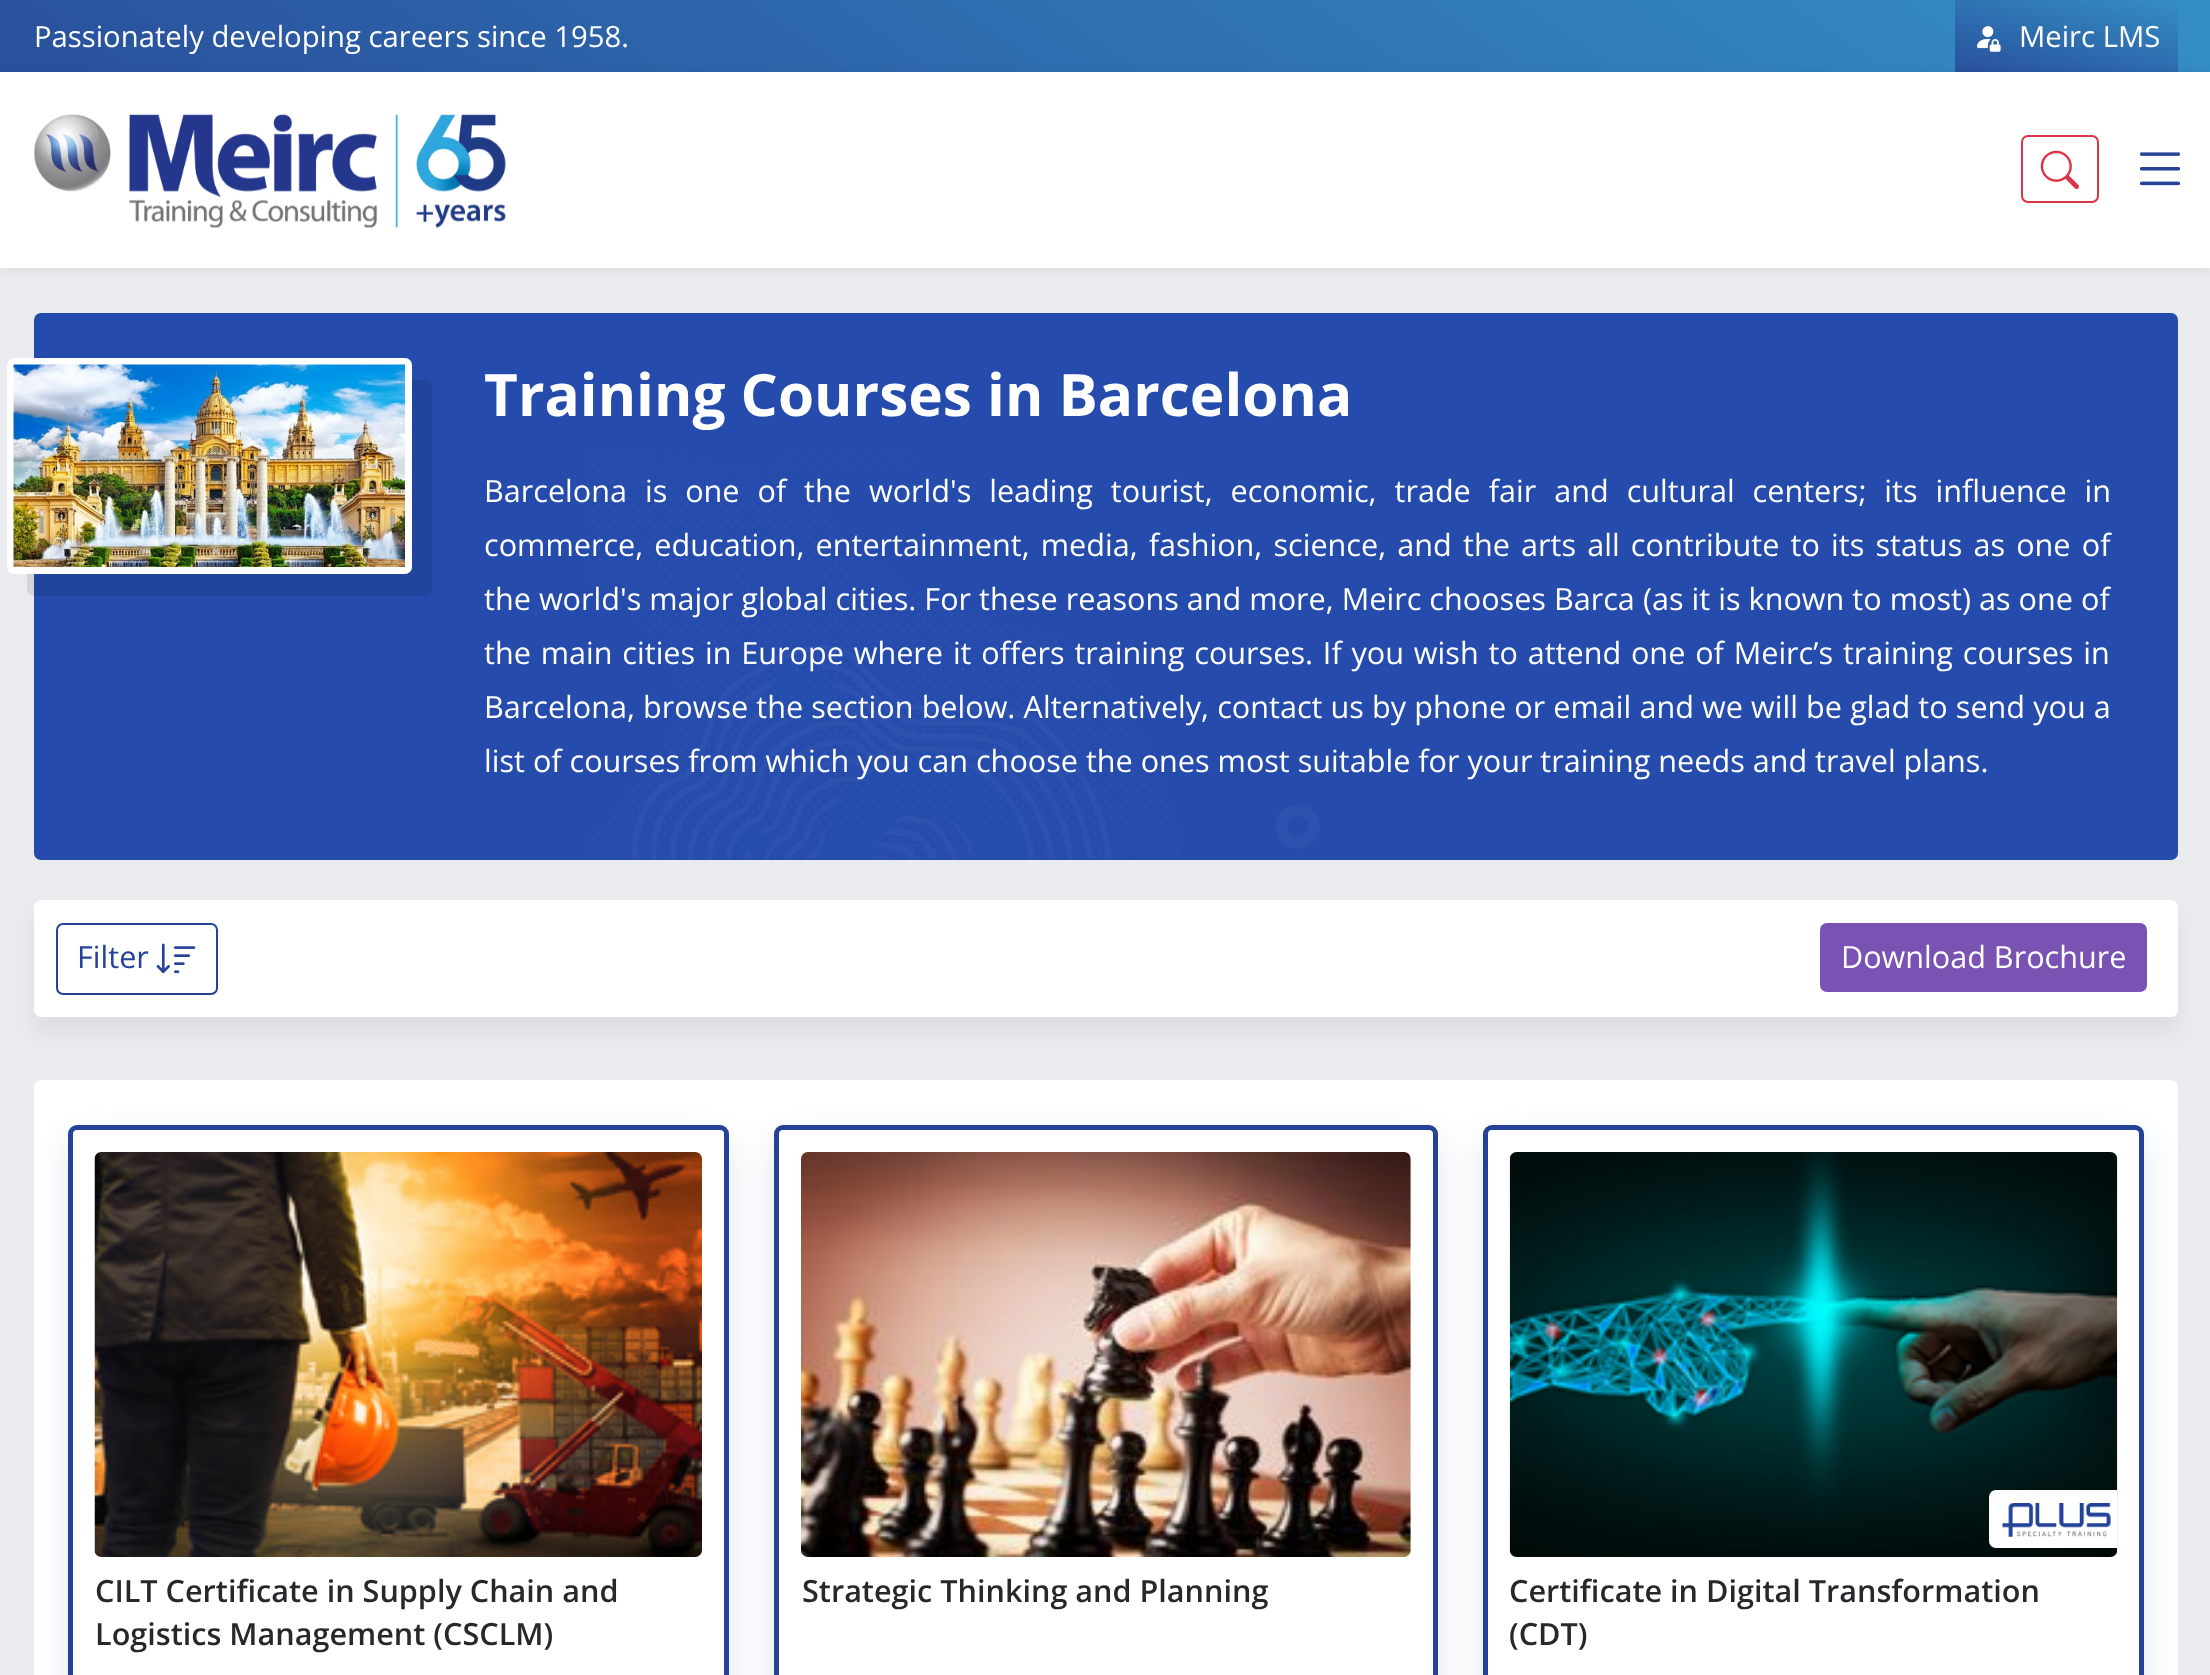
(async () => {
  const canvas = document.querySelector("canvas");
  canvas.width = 2210;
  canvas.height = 1675;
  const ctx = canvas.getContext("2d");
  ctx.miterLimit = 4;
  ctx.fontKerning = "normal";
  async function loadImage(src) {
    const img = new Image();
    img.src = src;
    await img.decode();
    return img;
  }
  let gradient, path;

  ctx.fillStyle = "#e9ebee";
  ctx.fillRect(0, 0, 2210, 1675);
  gradient = ctx.createLinearGradient(743, 573, 1468, -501);
  gradient.addColorStop(0, "#29509c");
  gradient.addColorStop(1, "#348fc4");
  ctx.fillStyle = gradient;
  ctx.fillRect(0, 0, 2210, 72);
  gradient = ctx.createLinearGradient(2052, 96, 2082, -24);
  gradient.addColorStop(0, "#29509c");
  gradient.addColorStop(1, "#348ec4");
  ctx.fillStyle = gradient;
  ctx.fillRect(1955, 0, 223, 72);
  ctx.drawImage(await loadImage("img/1.png"), 1977, 26, 24, 26);
  ctx.fillStyle = "rgba(0, 0, 0, 0.06)";
  ctx.filter = "blur(5.5px)";
  ctx.beginPath();
  ctx.rect(0, 74, 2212, 196);
  ctx.fill();
  ctx.filter = "none";
  ctx.fillStyle = "#ffffff";
  ctx.fillRect(0, 72, 2210, 196);
  ctx.drawImage(await loadImage("img/2.png"), 34, 114, 472, 114);
  ctx.beginPath();
  ctx.roundRect(2022, 136, 76, 66, 6);
  ctx.strokeStyle = "#dc3545";
  ctx.lineWidth = 2;
  ctx.stroke();
  ctx.drawImage(await loadImage("img/3.png"), 2040, 150, 39, 39);
  ctx.drawImage(await loadImage("img/4.png"), 2139, 152, 42, 34);
  ctx.fillStyle = "#254bad";
  ctx.beginPath();
  ctx.roundRect(34, 313, 2144, 547, 7);
  ctx.fill();
  ctx.fillStyle = "rgba(0, 0, 0, 0.09)";
  path = new Path2D("M27 574V589C27 593 30 596 34 596H425C429 596 432 593 432 589V387C432 383 429 380 425 380H412V567C412 571 409 574 405 574Z");
  ctx.fill(path);
  ctx.fillStyle = "#ffffff";
  ctx.beginPath();
  ctx.roundRect(7, 358, 405, 216, 7);
  ctx.fill();
  ctx.drawImage(await loadImage("img/5.png"), 13, 364, 392, 203);
  ctx.drawImage(await loadImage("img/6.png"), 587, 449, 733, 410);
  ctx.fillStyle = "rgba(0, 0, 0, 0.05)";
  ctx.filter = "blur(9px)";
  ctx.beginPath();
  ctx.roundRect(34, 916, 2144, 117, 7);
  ctx.fill();
  ctx.filter = "none";
  ctx.fillStyle = "#ffffff";
  ctx.beginPath();
  ctx.roundRect(34, 900, 2144, 117, 7);
  ctx.fill();
  ctx.beginPath();
  ctx.roundRect(57, 924, 160, 70, 6);
  ctx.strokeStyle = "#244298";
  ctx.stroke();
  ctx.drawImage(await loadImage("img/7.png"), 156, 943, 40, 31);
  ctx.fillStyle = "#7952b3";
  ctx.beginPath();
  ctx.roundRect(1821, 924, 325, 67, 6);
  ctx.fill();
  ctx.strokeStyle = "#7952b3";
  ctx.stroke();
  ctx.fillStyle = "#ffffff";
  ctx.beginPath();
  ctx.roundRect(34, 1080, 2144, 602, 7);
  ctx.fill();
  ctx.save();
  path = new Path2D("M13 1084H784V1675H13ZM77 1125H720C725 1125 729 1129 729 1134V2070C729 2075 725 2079 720 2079H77C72 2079 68 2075 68 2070V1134C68 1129 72 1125 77 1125Z");
  ctx.clip(path, "evenodd");
  ctx.fillStyle = "rgba(221, 230, 237, 0.9)";
  ctx.filter = "blur(18px)";
  ctx.beginPath();
  ctx.roundRect(68, 1139, 661, 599, 9);
  ctx.fill();
  ctx.filter = "none";
  ctx.restore();
  ctx.beginPath();
  ctx.roundRect(70.5, 1127.5, 656, 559, 6.5);
  ctx.strokeStyle = "#244298";
  ctx.lineWidth = 5;
  ctx.stroke();
  ctx.drawImage(await loadImage("img/8.png"), 94, 1152, 608, 405);
  ctx.fillStyle = "rgba(221, 230, 237, 0.9)";
  ctx.filter = "blur(18px)";
  ctx.beginPath();
  ctx.roundRect(774, 1139, 664, 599, 9);
  ctx.fill();
  ctx.filter = "none";
  ctx.fillStyle = "#ffffff";
  ctx.beginPath();
  ctx.roundRect(776.5, 1127.5, 659, 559, 6.5);
  ctx.fill();
  ctx.stroke();
  ctx.drawImage(await loadImage("img/9.png"), 801, 1152, 610, 405);
  ctx.save();
  path = new Path2D("M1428 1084H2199V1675H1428ZM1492 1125H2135C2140 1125 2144 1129 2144 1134V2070C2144 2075 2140 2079 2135 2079H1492C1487 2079 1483 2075 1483 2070V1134C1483 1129 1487 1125 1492 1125Z");
  ctx.clip(path, "evenodd");
  ctx.fillStyle = "rgba(221, 230, 237, 0.9)";
  ctx.filter = "blur(18px)";
  ctx.beginPath();
  ctx.roundRect(1483, 1139, 661, 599, 9);
  ctx.fill();
  ctx.filter = "none";
  ctx.restore();
  ctx.beginPath();
  ctx.roundRect(1485.5, 1127.5, 656, 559, 6.5);
  ctx.stroke();
  ctx.drawImage(await loadImage("img/10.png"), 1509, 1152, 609, 405);
  ctx.beginPath();
  ctx.roundRect(1989, 1490, 128, 58, [7, 0, 0, 7]);
  ctx.fill();
  ctx.drawImage(await loadImage("img/11.png"), 2002, 1503, 109, 34);
  ctx.font = "29.25px Open Sans";
  ctx.fillText("Passionately developing careers since 1958.", 34, 47);
  ctx.fillText("Meirc LMS", 2019, 47);
  ctx.font = "bold 58.5px Open Sans";
  ctx.fillText("Training Courses in Barcelona", 484, 416);
  ctx.wordSpacing = "10px";
  ctx.font = "30.6px Open Sans";
  ctx.fillText("Barcelona is one of the world's leading tourist, economic, trade fair and cultural centers; its influence in", 484, 502);
  ctx.wordSpacing = "3.25px";
  ctx.fillText("commerce, education, entertainment, media, fashion, science, and the arts all contribute to its status as one of", 484, 556);
  ctx.wordSpacing = "0.1px";
  ctx.fillText("the world's major global cities. For these reasons and more, Meirc chooses Barca (as it is known to most) as one of", 484, 610);
  ctx.wordSpacing = "1.9px";
  ctx.fillText("the main cities in Europe where it offers training courses. If you wish to attend one of Meirc’s training courses in", 484, 664);
  ctx.wordSpacing = "0.2px";
  ctx.fillText("Barcelona, browse the section below. Alternatively, contact us by phone or email and we will be glad to send you a", 484, 718);
  ctx.wordSpacing = "0px";
  ctx.fillText("list of courses from which you can choose the ones most suitable for your training needs and travel plans.", 484, 772);
  ctx.fillStyle = "#244298";
  ctx.fillText("Filter", 77, 968);
  ctx.fillStyle = "#ffffff";
  ctx.fillText("Download Brochure", 1841, 968);
  ctx.font = "600 30.6px Open Sans";
  ctx.fillStyle = "#27282b";
  for (const [text, x, y] of [
    ["CILT Certificate in Supply Chain and", 95, 1602],
    ["Logistics Management (CSCLM)", 95, 1645],
    ["Strategic Thinking and Planning", 802, 1602],
    ["Certificate in Digital Transformation", 1509, 1602],
    ["(CDT)", 1509, 1645],
  ]) {
    ctx.fillText(text, x, y);
  }
})();
